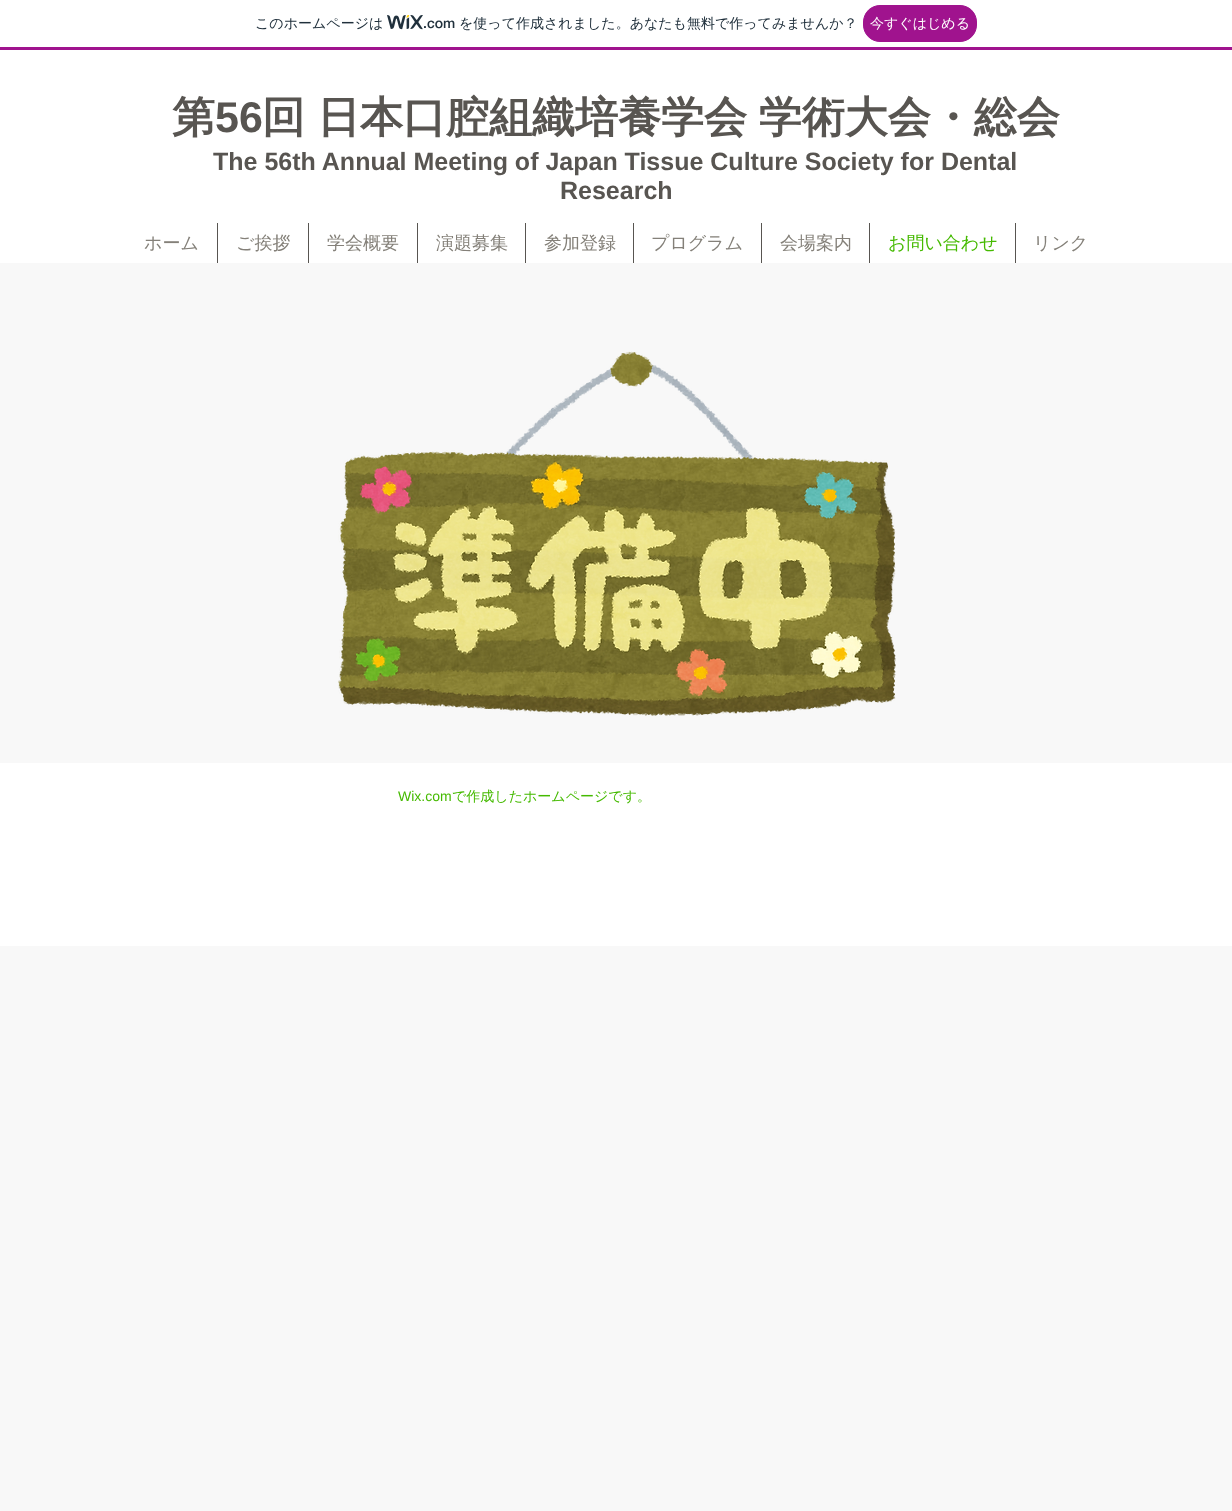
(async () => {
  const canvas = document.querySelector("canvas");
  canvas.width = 1232;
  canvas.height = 1511;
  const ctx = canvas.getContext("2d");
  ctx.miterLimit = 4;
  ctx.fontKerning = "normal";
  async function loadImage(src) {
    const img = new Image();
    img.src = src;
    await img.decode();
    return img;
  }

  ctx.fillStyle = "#ffffff";
  ctx.fillRect(0, 0, 1232, 1511);
  ctx.fillStyle = "#a0138e";
  ctx.fillRect(0, 47, 1232, 3);
  ctx.drawImage(await loadImage("img/1.png"), 387, 15, 36, 15);
  ctx.beginPath();
  ctx.roundRect(863.5, 5.5, 113, 36, 16.5);
  ctx.fill();
  ctx.strokeStyle = "#a0138e";
  ctx.stroke();
  for (const [x, y, w, h, color] of [
    [217, 223, 1, 40, "#585551"],
    [308, 223, 1, 40, "#585551"],
    [417, 223, 1, 40, "#585551"],
    [525, 223, 1, 40, "#585551"],
    [633, 223, 1, 40, "#585551"],
    [761, 223, 1, 40, "#585551"],
    [869, 223, 1, 40, "#585551"],
    [1015, 223, 1, 40, "#585551"],
    [0, 263, 1232, 1248, "#f8f8f8"],
  ]) {
    ctx.fillStyle = color;
    ctx.fillRect(x, y, w, h);
  }
  ctx.drawImage(await loadImage("img/2.png"), 338, 351, 558, 365);
  ctx.fillStyle = "#ffffff";
  ctx.fillRect(0, 763, 1232, 183);
  ctx.font = "500 14px WenQuanYi Zen Hei";
  ctx.fillStyle = "#20303c";
  ctx.fillText("このホームページは", 255, 28);
  ctx.font = "500 14px 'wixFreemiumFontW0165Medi'";
  ctx.fillText(".com", 423, 28);
  ctx.font = "500 14px WenQuanYi Zen Hei";
  ctx.fillText("を使って作成されました。あなたも無料で作ってみませんか？", 459, 28);
  ctx.fillStyle = "#ffffff";
  ctx.fillText("今すぐはじめる", 870, 28);
  ctx.font = "bold 43px WenQuanYi Zen Hei";
  ctx.fillStyle = "#585551";
  ctx.fillText("第", 172, 132);
  ctx.font = "bold 43px Liberation Sans";
  ctx.fillText("56", 215, 132);
  ctx.wordSpacing = "-1px";
  ctx.font = "bold 43px WenQuanYi Zen Hei";
  ctx.fillText("回 日本口腔組織培養学会 学術大会・総会", 262, 132);
  ctx.wordSpacing = "0px";
  ctx.font = "bold 25px Liberation Sans";
  ctx.fillText("The 56th Annual Meeting of Japan Tissue Culture Society for Dental", 213, 170);
  ctx.fillText("Research", 560, 199);
  ctx.font = "500 18px WenQuanYi Zen Hei";
  ctx.fillStyle = "#848079";
  for (const [text, x, y] of [
    ["ホーム", 144, 249],
    ["ご挨拶", 236, 249],
    ["学会概要", 327, 249],
    ["演題募集", 436, 249],
    ["参加登録", 544, 249],
    ["プログラム", 651, 249],
    ["会場案内", 780, 249],
  ]) {
    ctx.fillText(text, x, y);
  }
  ctx.fillStyle = "#45ba01";
  ctx.fillText("お問い合わせ", 888, 249);
  ctx.fillStyle = "#848079";
  ctx.fillText("リンク", 1033, 249);
  ctx.font = "14px Liberation Sans";
  ctx.fillStyle = "#45ba01";
  ctx.fillText("Wix.com", 398, 801);
  ctx.font = "500 14px WenQuanYi Zen Hei";
  ctx.fillText("で作成したホームページです。", 452, 801);
})();
